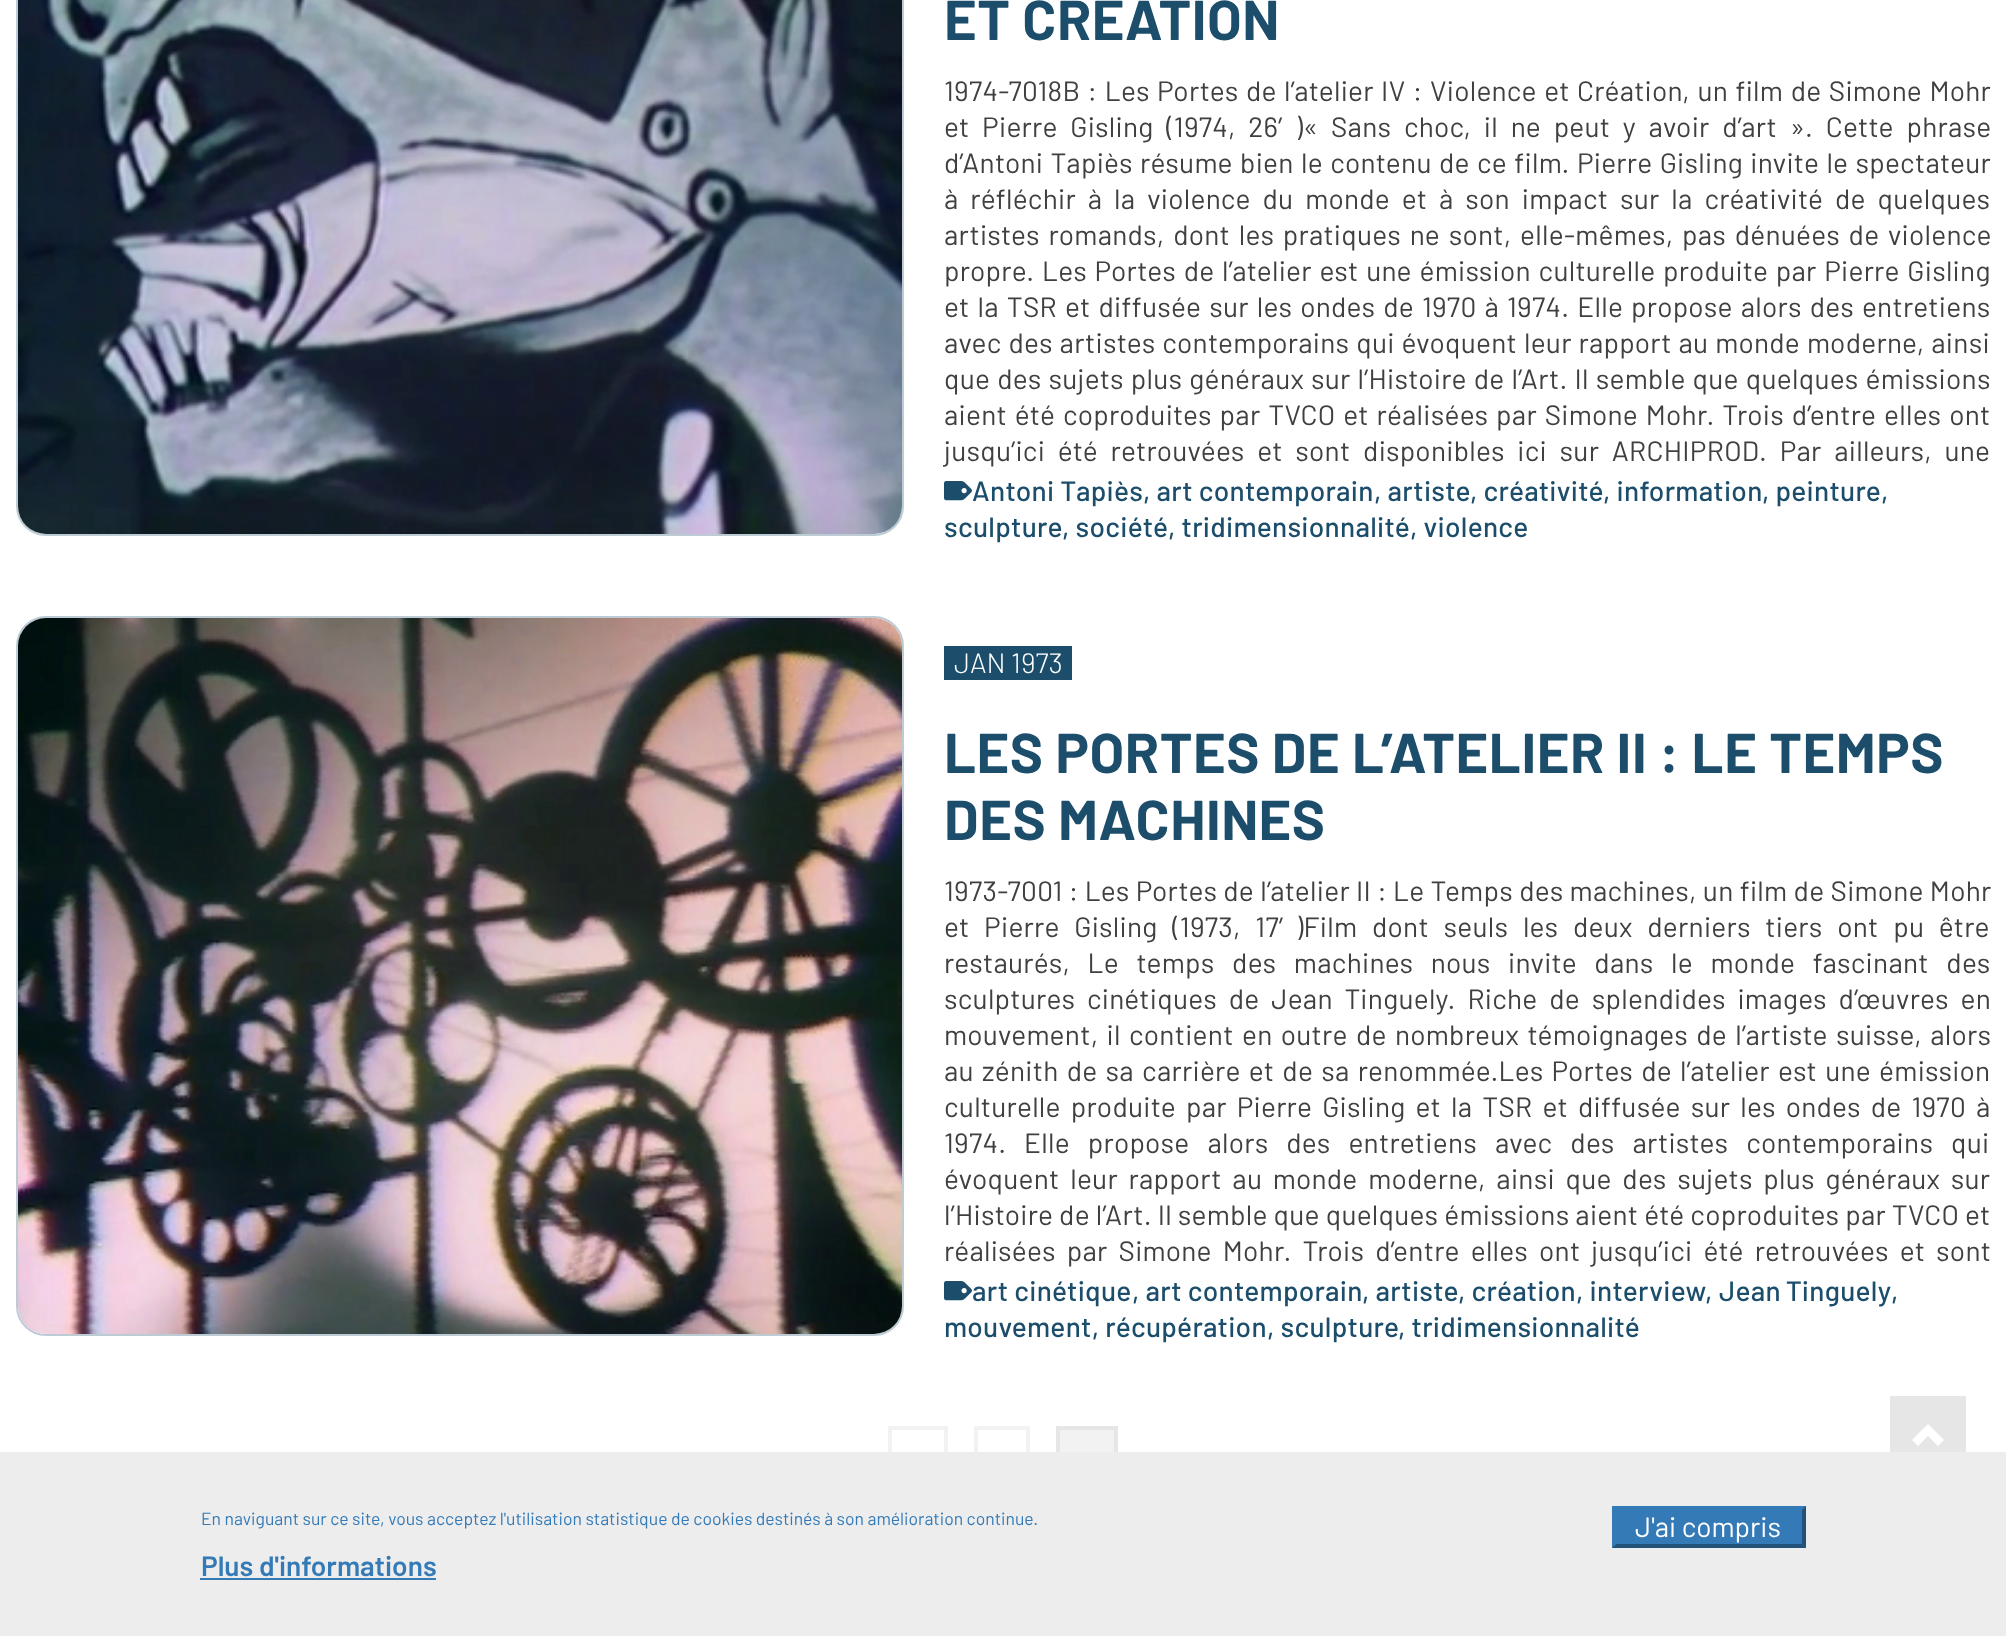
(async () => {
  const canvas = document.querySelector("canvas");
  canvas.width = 2006;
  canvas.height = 1636;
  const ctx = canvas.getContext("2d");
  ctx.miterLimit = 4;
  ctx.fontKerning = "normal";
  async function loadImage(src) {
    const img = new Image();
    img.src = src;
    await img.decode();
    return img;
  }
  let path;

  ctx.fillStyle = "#ffffff";
  ctx.fillRect(0, 0, 2006, 1636);
  ctx.beginPath();
  ctx.roundRect(17, -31, 886, 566, 29);
  ctx.strokeStyle = "#bccbd4";
  ctx.lineWidth = 2;
  ctx.stroke();
  ctx.drawImage(await loadImage("img/1.png"), 18, 0, 884, 534);
  ctx.drawImage(await loadImage("img/2.png"), 944, 481, 28, 20);
  ctx.beginPath();
  ctx.roundRect(17, 617, 886, 718, 29);
  ctx.stroke();
  ctx.drawImage(await loadImage("img/3.png"), 18, 618, 884, 716);
  ctx.fillStyle = "#1c4e6c";
  ctx.fillRect(944, 646, 128, 34);
  ctx.drawImage(await loadImage("img/2.png"), 944, 1281, 28, 20);
  ctx.strokeStyle = "#f2f2f2";
  ctx.lineWidth = 4;
  ctx.strokeRect(890, 1428, 56, 56);
  ctx.strokeRect(976, 1428, 52, 56);
  ctx.fillStyle = "#f2f2f2";
  ctx.fillRect(1060, 1430, 54, 22);
  ctx.strokeStyle = "#e6e6e6";
  ctx.strokeRect(1058, 1428, 58, 56);
  ctx.fillStyle = "#e6e6e6";
  ctx.fillRect(1890, 1396, 76, 56);
  ctx.fillStyle = "#ffffff";
  path = new Path2D("M1912 1440L1918 1446L1928 1436L1938 1446L1944 1440L1928 1424Z");
  ctx.fill(path);
  for (const [x, y, w, h, color] of [
    [0, 1452, 2006, 184, "#ededed"],
    [200, 1578, 236, 2, "#337ab7"],
    [1612, 1506, 194, 42, "#337ab7"],
  ]) {
    ctx.fillStyle = color;
    ctx.fillRect(x, y, w, h);
  }
  ctx.fillStyle = "#22517a";
  path = new Path2D("M1806 1506V1548L1802 1544V1510Z");
  ctx.fill(path);
  path = new Path2D("M1806 1548H1612L1616 1544H1802Z");
  ctx.fill(path);
  ctx.fillStyle = "#337ab7";
  path = new Path2D("M1612 1548V1506L1616 1510V1544Z");
  ctx.fill(path);
  ctx.letterSpacing = "0.55px";
  ctx.font = "bold 56px Barlow";
  ctx.fillStyle = "#1c4e6c";
  ctx.fillText("ET CRÉATION", 944, 40);
  ctx.letterSpacing = "0.28px";
  ctx.wordSpacing = "1.5px";
  ctx.font = "28px Barlow";
  ctx.fillStyle = "#404040";
  ctx.fillText("1974-7018B : Les Portes de l’atelier IV : Violence et Création, un film de Simone Mohr", 944, 101);
  ctx.wordSpacing = "6.75px";
  ctx.fillText("et Pierre Gisling (1974, 26′)« Sans choc, il ne peut y avoir d’art ». Cette phrase", 944, 137);
  ctx.wordSpacing = "1.4px";
  ctx.fillText("d’Antoni Tapiès résume bien le contenu de ce film. Pierre Gisling invite le spectateur", 944, 173);
  ctx.wordSpacing = "5.9px";
  ctx.fillText("à réfléchir à la violence du monde et à son impact sur la créativité de quelques", 944, 209);
  ctx.wordSpacing = "2.75px";
  ctx.fillText("artistes romands, dont les pratiques ne sont, elle-mêmes, pas dénuées de violence", 944, 245);
  ctx.wordSpacing = "1.75px";
  ctx.fillText("propre. Les Portes de l’atelier est une émission culturelle produite par Pierre Gisling", 944, 281);
  ctx.wordSpacing = "2.1px";
  ctx.fillText("et la TSR et diffusée sur les ondes de 1970 à 1974. Elle propose alors des entretiens", 944, 317);
  ctx.wordSpacing = "1px";
  ctx.fillText("avec des artistes contemporains qui évoquent leur rapport au monde moderne, ainsi", 944, 353);
  ctx.wordSpacing = "1.1px";
  ctx.fillText("que des sujets plus généraux sur l’Histoire de l’Art. Il semble que quelques émissions", 944, 389);
  ctx.wordSpacing = "1.9px";
  ctx.fillText("aient été coproduites par TVCO et réalisées par Simone Mohr. Trois d’entre elles ont", 944, 425);
  ctx.wordSpacing = "6.75px";
  ctx.fillText("jusqu’ici été retrouvées et sont disponibles ici sur ARCHIPROD. Par ailleurs, une", 944, 461);
  ctx.wordSpacing = "0px";
  ctx.font = "500 28px Barlow";
  ctx.fillStyle = "#1c4e6c";
  for (const [text, x, y] of [
    ["Antoni Tapiès, art contemporain", 972, 501],
    [", artiste", 1374, 501],
    [", créativité", 1470, 501],
    [", information", 1603, 501],
    [", peinture", 1762, 501],
    [",", 1881, 501],
    ["sculpture", 944, 537],
    [", société", 1062, 537],
    [", tridimensionnalité", 1168, 537],
    [", violence", 1410, 537],
  ]) {
    ctx.fillText(text, x, y);
  }
  ctx.letterSpacing = "0px";
  ctx.font = "300 28px Barlow";
  ctx.fillStyle = "#ffffff";
  ctx.fillText("JAN 1973", 954, 673);
  ctx.letterSpacing = "0.55px";
  ctx.font = "bold 56px Barlow";
  ctx.fillStyle = "#1c4e6c";
  ctx.fillText("LES PORTES DE L’ATELIER II : LE TEMPS", 944, 773);
  ctx.fillText("DES MACHINES", 944, 840);
  ctx.letterSpacing = "0.28px";
  ctx.wordSpacing = "0.25px";
  ctx.font = "28px Barlow";
  ctx.fillStyle = "#404040";
  ctx.fillText("1973-7001 : Les Portes de l’atelier II : Le Temps des machines, un film de Simone Mohr", 944, 901);
  ctx.wordSpacing = "8.75px";
  ctx.fillText("et Pierre Gisling (1973, 17′)Film dont seuls les deux derniers tiers ont pu être", 944, 937);
  ctx.wordSpacing = "11.6px";
  ctx.fillText("restaurés, Le temps des machines nous invite dans le monde fascinant des", 944, 973);
  ctx.wordSpacing = "5.9px";
  ctx.fillText("sculptures cinétiques de Jean Tinguely. Riche de splendides images d’œuvres en", 944, 1009);
  ctx.wordSpacing = "2.4px";
  ctx.fillText("mouvement, il contient en outre de nombreux témoignages de l’artiste suisse, alors", 944, 1045);
  ctx.wordSpacing = "2.25px";
  ctx.fillText("au zénith de sa carrière et de sa renommée.Les Portes de l’atelier est une émission", 944, 1081);
  ctx.wordSpacing = "4.1px";
  ctx.fillText("culturelle produite par Pierre Gisling et la TSR et diffusée sur les ondes de 1970 à", 944, 1117);
  ctx.wordSpacing = "12px";
  ctx.fillText("1974. Elle propose alors des entretiens avec des artistes contemporains qui", 944, 1153);
  ctx.wordSpacing = "4.75px";
  ctx.fillText("évoquent leur rapport au monde moderne, ainsi que des sujets plus généraux sur", 944, 1189);
  ctx.wordSpacing = "0px";
  ctx.fillText("l’Histoire de l’Art. Il semble que quelques émissions aient été coproduites par TVCO et", 944, 1225);
  ctx.wordSpacing = "5.1px";
  ctx.fillText("réalisées par Simone Mohr. Trois d’entre elles ont jusqu’ici été retrouvées et sont", 944, 1261);
  ctx.wordSpacing = "0px";
  ctx.font = "500 28px Barlow";
  ctx.fillStyle = "#1c4e6c";
  for (const [text, x, y] of [
    ["art cinétique", 972, 1301],
    [", art contemporain", 1132, 1301],
    [", artiste", 1362, 1301],
    [", création", 1458, 1301],
    [", interview", 1576, 1301],
    [",", 1705, 1301],
  ]) {
    ctx.fillText(text, x, y);
  }
  ctx.wordSpacing = "-1px";
  ctx.fillText("Jean Tinguely", 1719, 1301);
  ctx.wordSpacing = "0px";
  for (const [text, x, y] of [
    [",", 1891, 1301],
    ["mouvement, récupération", 944, 1337],
    [", sculpture", 1267, 1337],
    [", tridimensionnalité", 1398, 1337],
  ]) {
    ctx.fillText(text, x, y);
  }
  ctx.letterSpacing = "0px";
  ctx.font = "17.5px Barlow";
  ctx.fillStyle = "#337ab7";
  ctx.fillText("En naviguant sur ce site, vous acceptez l'utilisation statistique de cookies destinés à son amélioration continue.", 201, 1525);
  ctx.font = "600 28px Barlow";
  ctx.fillText("Plus d'informations", 201, 1576);
  ctx.font = "28px Barlow";
  ctx.fillStyle = "#ffffff";
  ctx.fillText("J'ai compris", 1635, 1537);
})();
